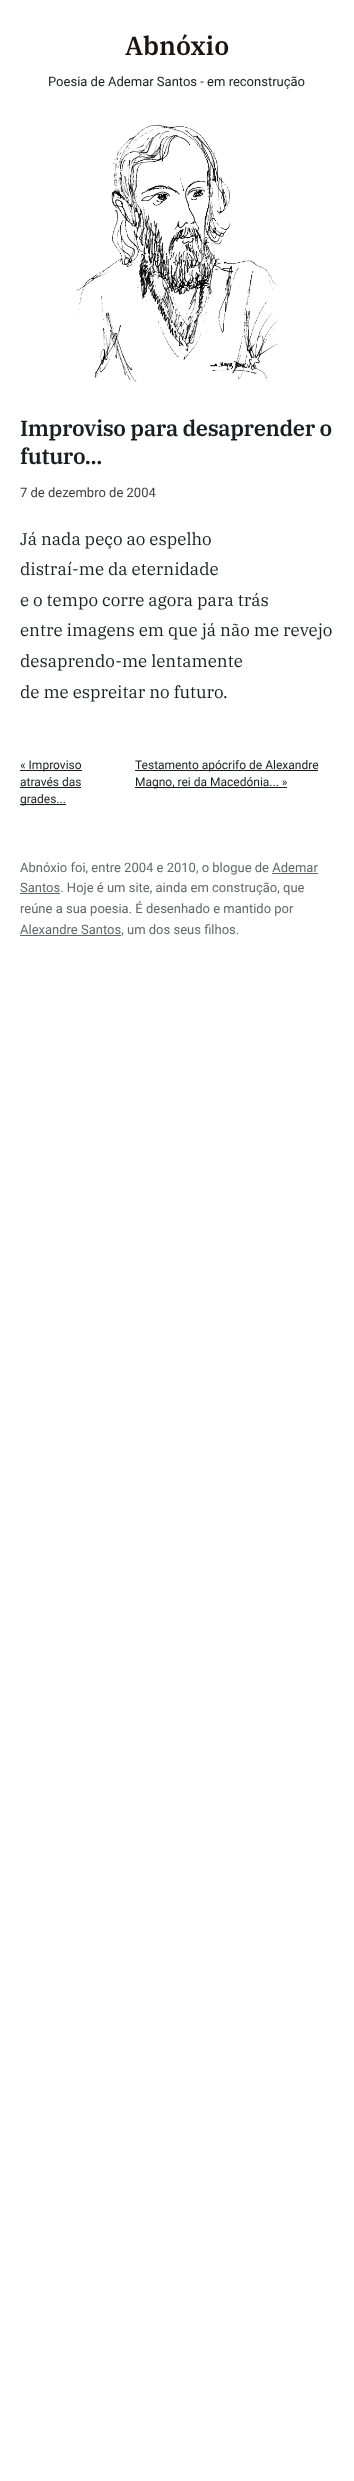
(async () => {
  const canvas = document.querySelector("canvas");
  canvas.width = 354;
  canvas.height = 2481;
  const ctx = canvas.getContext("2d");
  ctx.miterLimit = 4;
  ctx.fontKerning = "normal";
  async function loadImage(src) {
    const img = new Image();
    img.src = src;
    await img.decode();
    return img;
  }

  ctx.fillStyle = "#ffffff";
  ctx.fillRect(0, 0, 354, 2481);
  ctx.drawImage(await loadImage("img/1.png"), 76, 124, 203, 258);
  for (const [x, y, w, h, color] of [
    [20, 770, 62, 1, "#1a1e22"],
    [20, 787, 61, 1, "#1a1e22"],
    [20, 804, 46, 1, "#1a1e22"],
    [135, 770, 183, 1, "#1a1e22"],
    [135, 787, 152, 1, "#1a1e22"],
    [272, 873, 46, 1, "#64676b"],
    [20, 893, 40, 1, "#64676b"],
    [20, 935, 101, 1, "#64676b"],
  ]) {
    ctx.fillStyle = color;
    ctx.fillRect(x, y, w, h);
  }
  ctx.font = "600 26px IBM Plex Serif";
  ctx.fillStyle = "#1d1313";
  ctx.fillText("Abnóxio", 125, 55);
  ctx.font = "13px Roboto";
  ctx.fillStyle = "#1a1e22";
  ctx.fillText("Poesia de Ademar Santos - em reconstrução", 48, 86);
  ctx.letterSpacing = "-0.4px";
  ctx.font = "600 22px IBM Plex Serif";
  ctx.fillText("Improviso para desaprender o", 20, 436);
  ctx.fillText("futuro...", 20, 464);
  ctx.letterSpacing = "0px";
  ctx.font = "13px Roboto";
  ctx.fillStyle = "#403c3b";
  ctx.fillText("7 de dezembro de 2004", 20, 497);
  ctx.font = "17px IBM Plex Serif";
  ctx.fillStyle = "#1a1e22";
  for (const [text, x, y] of [
    ["Já nada peço ao espelho", 20, 545],
    ["distraí-me da eternidade", 20, 575],
    ["e o tempo corre agora para trás", 20, 606],
    ["entre imagens em que já não me revejo", 20, 636],
    ["desaprendo-me lentamente", 20, 667],
    ["de me espreitar no futuro.", 20, 698],
  ]) {
    ctx.fillText(text, x, y);
  }
  ctx.font = "12px Roboto";
  for (const [text, x, y] of [
    ["« Improviso", 20, 769],
    ["através das", 20, 786],
    ["grades...", 20, 803],
    ["Testamento apócrifo de Alexandre", 135, 769],
    ["Magno, rei da Macedónia... »", 135, 786],
  ]) {
    ctx.fillText(text, x, y);
  }
  ctx.font = "13px Roboto";
  ctx.fillStyle = "#64676b";
  for (const [text, x, y] of [
    ["Abnóxio foi, entre 2004 e 2010, o blogue de Ademar", 20, 872],
    ["Santos. Hoje é um site, ainda em construção, que", 20, 892],
    ["reúne a sua poesia. É desenhado e mantido por", 20, 913],
    ["Alexandre Santos, um dos seus filhos.", 20, 934],
  ]) {
    ctx.fillText(text, x, y);
  }
})();
